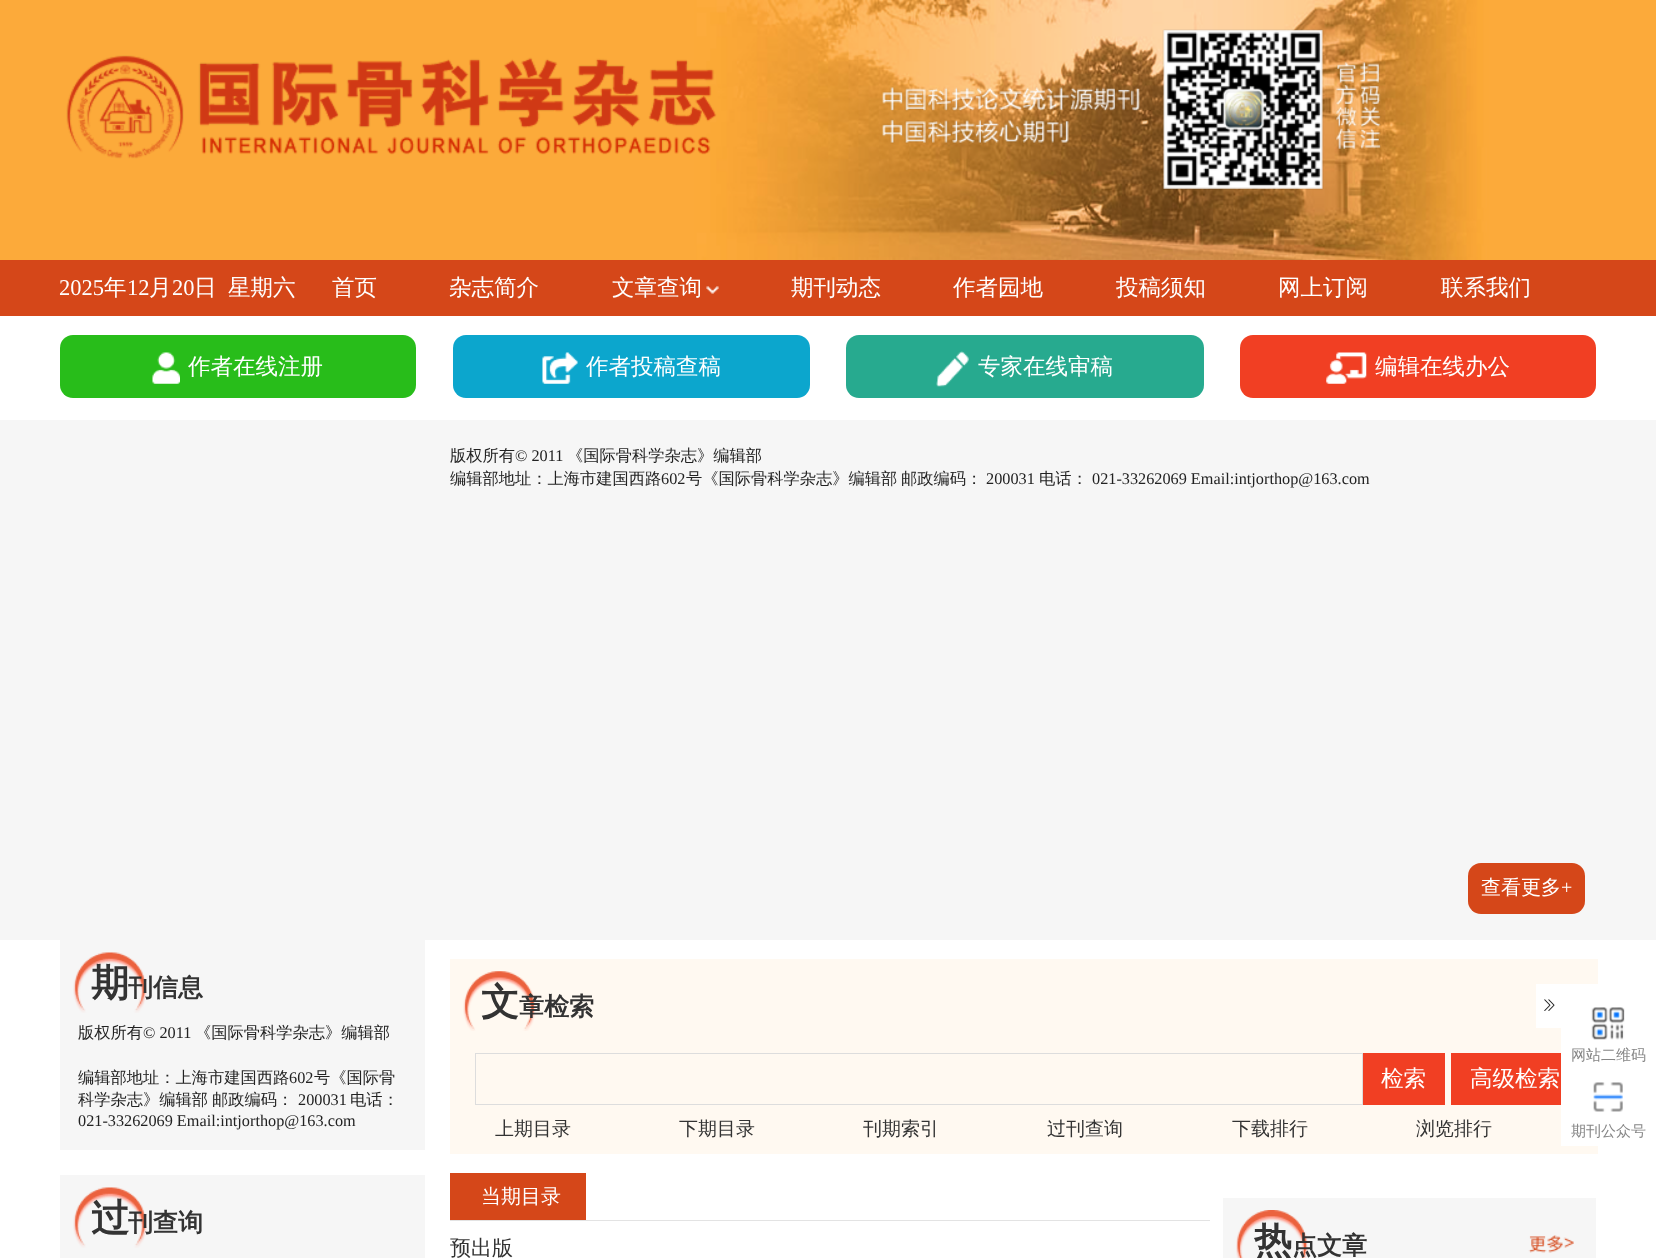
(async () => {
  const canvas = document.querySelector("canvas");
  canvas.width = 1656;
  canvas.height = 1258;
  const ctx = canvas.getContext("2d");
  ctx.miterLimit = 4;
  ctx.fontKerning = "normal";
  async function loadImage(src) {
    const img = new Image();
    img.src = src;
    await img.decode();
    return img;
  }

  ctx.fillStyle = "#ffffff";
  ctx.fillRect(0, 0, 1656, 1258);
  ctx.drawImage(await loadImage("img/1.png"), 0, 0, 1656, 260);
  ctx.drawImage(await loadImage("img/2.png"), 66, 29, 1315, 161);
  ctx.fillStyle = "#d54719";
  ctx.fillRect(0, 260, 1656, 56);
  ctx.drawImage(await loadImage("img/3.png"), 706, 286, 13, 8);
  ctx.fillStyle = "#28bd1a";
  ctx.beginPath();
  ctx.roundRect(60, 335, 356, 63, 13);
  ctx.fill();
  ctx.drawImage(await loadImage("img/4.png"), 152, 352, 28, 32);
  ctx.fillStyle = "#0ca6cd";
  ctx.beginPath();
  ctx.roundRect(453, 335, 357, 63, 13);
  ctx.fill();
  ctx.drawImage(await loadImage("img/5.png"), 542, 352, 36, 32);
  ctx.fillStyle = "#27aa8f";
  ctx.beginPath();
  ctx.roundRect(846, 335, 358, 63, 13);
  ctx.fill();
  ctx.drawImage(await loadImage("img/6.png"), 936, 351, 33, 36);
  ctx.fillStyle = "#f13f23";
  ctx.beginPath();
  ctx.roundRect(1240, 335, 356, 63, 13);
  ctx.fill();
  ctx.drawImage(await loadImage("img/7.png"), 1326, 352, 41, 32);
  ctx.fillStyle = "#f6f6f6";
  ctx.fillRect(0, 420, 1656, 520);
  ctx.fillStyle = "#d54719";
  ctx.beginPath();
  ctx.roundRect(1468, 863, 117, 51, 13);
  ctx.fill();
  ctx.fillStyle = "#f6f6f6";
  ctx.fillRect(60, 940, 365, 210);
  ctx.drawImage(await loadImage("img/8.png"), 73, 952, 74, 61);
  ctx.fillRect(60, 1175, 365, 83);
  ctx.drawImage(await loadImage("img/8.png"), 73, 1187, 74, 61);
  ctx.fillStyle = "#fff9f1";
  ctx.fillRect(450, 959, 1148, 195);
  ctx.drawImage(await loadImage("img/9.png"), 463, 971, 73, 60);
  ctx.strokeStyle = "#dddddd";
  ctx.strokeRect(475.5, 1053.5, 887, 51);
  for (const [x, y, w, h, color] of [
    [1363, 1053, 82, 52, "#f13f23"],
    [1451, 1053, 110, 52, "#f13f23"],
    [450, 1220, 760, 1, "#e3e3e3"],
    [450, 1173, 136, 47, "#d54719"],
    [1223, 1198, 373, 60, "#f6f6f6"],
  ]) {
    ctx.fillStyle = color;
    ctx.fillRect(x, y, w, h);
  }
  ctx.drawImage(await loadImage("img/10.png"), 1236, 1210, 72, 48);
  ctx.drawImage(await loadImage("img/11.png"), 1528, 1235, 46, 18);
  ctx.fillStyle = "#868686";
  ctx.filter = "blur(0.5px)";
  ctx.beginPath();
  ctx.rect(1536, 984, 25, 44);
  ctx.fill();
  ctx.filter = "none";
  ctx.fillStyle = "#ffffff";
  ctx.fillRect(1536, 984, 25, 44);
  ctx.drawImage(await loadImage("img/12.png"), 1544, 999, 11, 12);
  ctx.fillStyle = "#868686";
  ctx.filter = "blur(0.5px)";
  ctx.beginPath();
  ctx.rect(1561, 984, 95, 162);
  ctx.fill();
  ctx.filter = "none";
  ctx.fillStyle = "#ffffff";
  ctx.fillRect(1561, 984, 95, 162);
  ctx.drawImage(await loadImage("img/13.png"), 1591, 1007, 34, 33);
  ctx.drawImage(await loadImage("img/14.png"), 1593, 1082, 30, 30);
  ctx.font = "22.5px Liberation Serif";
  ctx.fillText("2025", 59, 295);
  ctx.font = "500 22.5px WenQuanYi Zen Hei";
  ctx.fillText("年", 104, 295);
  ctx.font = "22.5px Liberation Serif";
  ctx.fillText("12", 127, 295);
  ctx.font = "500 22.5px WenQuanYi Zen Hei";
  ctx.fillText("月", 149, 295);
  ctx.font = "22.5px Liberation Serif";
  ctx.fillText("20", 172, 295);
  ctx.font = "500 22.5px WenQuanYi Zen Hei";
  for (const [text, x, y] of [
    ["日", 194, 295],
    ["星期六", 228, 295],
    ["首页", 332, 295],
    ["杂志简介", 449, 295],
    ["文章查询", 612, 295],
    ["期刊动态", 791, 295],
    ["作者园地", 953, 295],
    ["投稿须知", 1116, 295],
    ["网上订阅", 1278, 295],
    ["联系我们", 1441, 295],
    ["作者在线注册", 188, 374],
    ["作者投稿查稿", 586, 374],
    ["专家在线审稿", 978, 374],
    ["编辑在线办公", 1375, 374],
  ]) {
    ctx.fillText(text, x, y);
  }
  ctx.font = "500 16.25px WenQuanYi Zen Hei";
  ctx.fillStyle = "#222222";
  ctx.fillText("版权所有", 450, 461);
  ctx.font = "16.25px Liberation Serif";
  ctx.fillText("© 2011", 515, 461);
  ctx.font = "500 16.25px WenQuanYi Zen Hei";
  ctx.fillText("《国际骨科学杂志》编辑部", 567, 461);
  ctx.fillText("编辑部地址：上海市建国西路", 450, 484);
  ctx.font = "16.25px Liberation Serif";
  ctx.fillText("602", 661, 484);
  ctx.font = "500 16.25px WenQuanYi Zen Hei";
  ctx.fillText("号《国际骨科学杂志》编辑部", 686, 484);
  ctx.fillText("邮政编码：", 901, 484);
  ctx.font = "16.25px Liberation Serif";
  ctx.fillText("200031", 986, 484);
  ctx.font = "500 16.25px WenQuanYi Zen Hei";
  ctx.fillText("电话：", 1039, 484);
  ctx.font = "16.25px Liberation Serif";
  ctx.fillText("021-33262069 Email:intjorthop@163.com", 1092, 484);
  ctx.font = "500 20px WenQuanYi Zen Hei";
  ctx.fillStyle = "#ffffff";
  ctx.fillText("查看更多", 1481, 894);
  ctx.font = "20px Liberation Serif";
  ctx.fillText("+", 1561, 894);
  ctx.font = "bold 38px WenQuanYi Zen Hei";
  ctx.fillStyle = "#333333";
  ctx.fillText("期", 91, 996);
  ctx.font = "bold 25px WenQuanYi Zen Hei";
  ctx.fillText("刊信息", 128, 996);
  ctx.font = "500 16.25px WenQuanYi Zen Hei";
  ctx.fillStyle = "#222222";
  ctx.fillText("版权所有", 78, 1038);
  ctx.font = "16.25px Liberation Serif";
  ctx.fillText("© 2011", 143, 1038);
  ctx.font = "500 16.25px WenQuanYi Zen Hei";
  ctx.fillText("《国际骨科学杂志》编辑部", 195, 1038);
  ctx.fillText("编辑部地址：上海市建国西路", 78, 1083);
  ctx.font = "16.25px Liberation Serif";
  ctx.fillText("602", 289, 1083);
  ctx.font = "500 16.25px WenQuanYi Zen Hei";
  for (const [text, x, y] of [
    ["号《国际骨", 314, 1083],
    ["科学杂志》编辑部", 78, 1105],
    ["邮政编码：", 212, 1105],
  ]) {
    ctx.fillText(text, x, y);
  }
  ctx.font = "16.25px Liberation Serif";
  ctx.fillText("200031", 298, 1105);
  ctx.font = "500 16.25px WenQuanYi Zen Hei";
  ctx.fillText("电话：", 350, 1105);
  ctx.font = "16.25px Liberation Serif";
  ctx.fillText("021-33262069 Email:intjorthop@163.com", 78, 1126);
  ctx.font = "bold 38px WenQuanYi Zen Hei";
  ctx.fillStyle = "#333333";
  ctx.fillText("过", 91, 1231);
  ctx.font = "bold 25px WenQuanYi Zen Hei";
  ctx.fillText("刊查询", 128, 1231);
  ctx.font = "bold 38px WenQuanYi Zen Hei";
  ctx.fillText("文", 481, 1015);
  ctx.font = "bold 25px WenQuanYi Zen Hei";
  ctx.fillText("章检索", 519, 1015);
  ctx.font = "500 22.5px WenQuanYi Zen Hei";
  ctx.fillStyle = "#ffffff";
  ctx.fillText("检索", 1381, 1086);
  ctx.fillText("高级检索", 1470, 1086);
  ctx.font = "500 19px WenQuanYi Zen Hei";
  ctx.fillStyle = "#333333";
  for (const [text, x, y] of [
    ["上期目录", 495, 1135],
    ["下期目录", 679, 1135],
    ["刊期索引", 863, 1135],
    ["过刊查询", 1047, 1135],
    ["下载排行", 1232, 1135],
    ["浏览排行", 1416, 1135],
  ]) {
    ctx.fillText(text, x, y);
  }
  ctx.font = "500 20px WenQuanYi Zen Hei";
  ctx.fillStyle = "#ffffff";
  ctx.fillText("当期目录", 481, 1203);
  ctx.font = "500 21px WenQuanYi Zen Hei";
  ctx.fillStyle = "#333333";
  ctx.fillText("预出版", 450, 1255);
  ctx.font = "bold 38px WenQuanYi Zen Hei";
  ctx.fillText("热", 1254, 1254);
  ctx.font = "bold 25px WenQuanYi Zen Hei";
  ctx.fillText("点文章", 1292, 1254);
  ctx.font = "500 15px WenQuanYi Zen Hei";
  ctx.fillStyle = "#868686";
  ctx.fillText("网站二维码", 1571, 1060);
  ctx.fillText("期刊公众号", 1571, 1136);
})();
